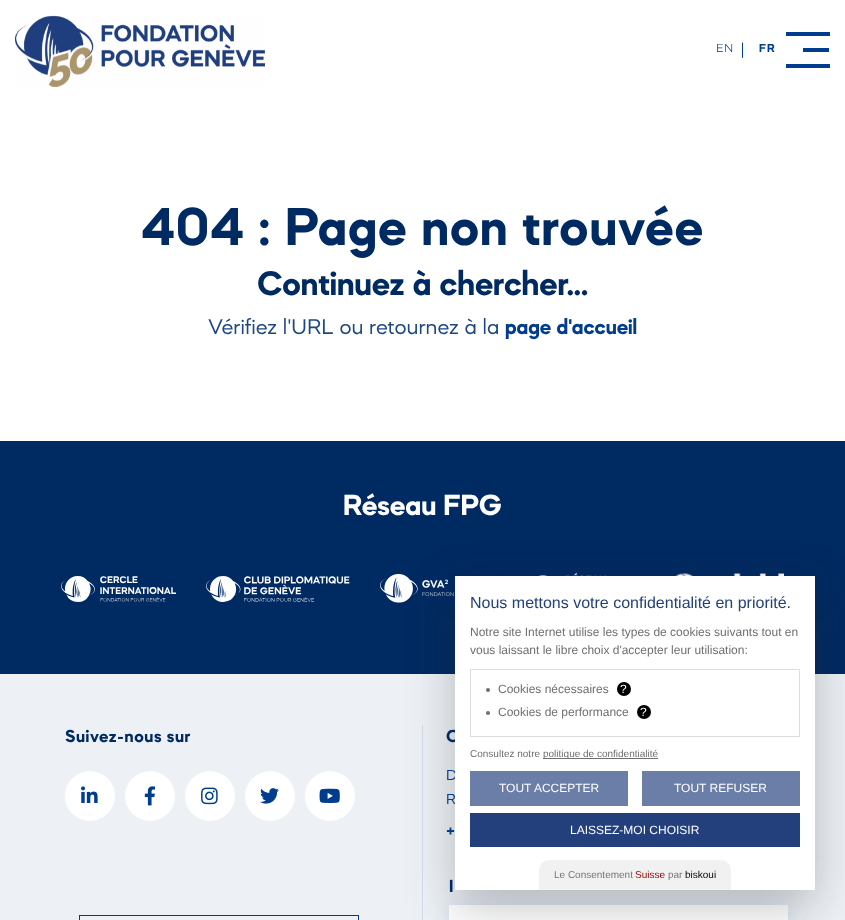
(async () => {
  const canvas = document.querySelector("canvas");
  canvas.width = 845;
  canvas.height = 920;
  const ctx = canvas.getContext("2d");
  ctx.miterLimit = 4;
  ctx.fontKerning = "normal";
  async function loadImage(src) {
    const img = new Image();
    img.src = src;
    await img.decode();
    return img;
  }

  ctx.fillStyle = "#ffffff";
  ctx.fillRect(0, 0, 845, 920);
  ctx.drawImage(await loadImage("img/1.png"), 15, 15, 250, 72);
  for (const [x, y, w, h, color] of [
    [786, 32, 44, 4, "#003d8f"],
    [803, 48, 26, 4, "#003d8f"],
    [786, 64, 44, 4, "#003d8f"],
    [0, 441, 845, 233, "#002a62"],
  ]) {
    ctx.fillStyle = color;
    ctx.fillRect(x, y, w, h);
  }
  ctx.drawImage(await loadImage("img/2.png"), 61, 576, 115, 26);
  ctx.drawImage(await loadImage("img/3.png"), 206, 576, 144, 26);
  ctx.drawImage(await loadImage("img/4.png"), 380, 574, 74, 29);
  ctx.drawImage(await loadImage("img/5.png"), 539, 573, 68, 3);
  ctx.drawImage(await loadImage("img/6.png"), 675, 573, 109, 3);
  ctx.fillStyle = "#edf1f5";
  ctx.fillRect(0, 674, 845, 246);
  ctx.fillStyle = "#d3ddea";
  ctx.fillRect(422, 725, 1, 195);
  ctx.fillStyle = "#ffffff";
  ctx.beginPath();
  ctx.arc(90, 796, 25, 0, Math.PI * 2);
  ctx.fill();
  ctx.drawImage(await loadImage("img/7.png"), 81, 786, 17, 17);
  ctx.beginPath();
  ctx.arc(150, 796, 25, 0, Math.PI * 2);
  ctx.fill();
  ctx.drawImage(await loadImage("img/8.png"), 144, 786, 12, 20);
  ctx.beginPath();
  ctx.arc(210, 796, 25, 0, Math.PI * 2);
  ctx.fill();
  ctx.drawImage(await loadImage("img/9.png"), 201, 787, 17, 18);
  ctx.beginPath();
  ctx.arc(270, 796, 25, 0, Math.PI * 2);
  ctx.fill();
  ctx.drawImage(await loadImage("img/10.png"), 260, 788, 19, 16);
  ctx.beginPath();
  ctx.arc(330, 796, 25, 0, Math.PI * 2);
  ctx.fill();
  ctx.drawImage(await loadImage("img/11.png"), 319, 788, 21, 15);
  ctx.fillStyle = "rgba(0, 61, 143, 0.11)";
  ctx.filter = "blur(12.5px)";
  ctx.beginPath();
  ctx.rect(449, 905, 339, 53);
  ctx.fill();
  ctx.filter = "none";
  ctx.fillStyle = "#ffffff";
  ctx.fillRect(449, 905, 339, 15);
  ctx.strokeStyle = "#003d8f";
  ctx.strokeRect(79.5, 915.5, 279, 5);
  ctx.fillStyle = "rgba(33, 37, 41, 0.28)";
  ctx.filter = "blur(24px)";
  ctx.beginPath();
  ctx.rect(455, 592, 360, 314);
  ctx.fill();
  ctx.filter = "none";
  ctx.letterSpacing = "1px";
  ctx.font = "300 12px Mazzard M";
  ctx.fillStyle = "#003d8f";
  ctx.fillText("EN", 716, 52);
  ctx.letterSpacing = "0px";
  ctx.font = "16px Mazzard M";
  ctx.fillText("|", 741, 55);
  ctx.letterSpacing = "1px";
  ctx.font = "bold 12px Mazzard M";
  ctx.fillText("FR", 759, 52);
  ctx.font = "bold 55px Mazzard M";
  ctx.fillStyle = "#002a62";
  ctx.fillText("404 : Page non trouvée", 141, 245);
  ctx.letterSpacing = "0px";
  ctx.font = "bold 35px Mazzard M";
  ctx.fillText("Continuez à chercher...", 257, 295);
  ctx.font = "22px Mazzard M";
  ctx.fillStyle = "#1d4883";
  ctx.fillText("Vérifiez l'URL ou retournez à la", 208, 334);
  ctx.font = "bold 22px Mazzard M";
  ctx.fillStyle = "#003d8f";
  ctx.fillText("page d'accueil", 505, 334);
  ctx.font = "bold 30px Mazzard M";
  ctx.fillStyle = "#ffffff";
  ctx.fillText("Réseau FPG", 343, 515);
  ctx.letterSpacing = "0.6px";
  ctx.font = "bold 18px Mazzard M";
  ctx.fillStyle = "#002a62";
  ctx.fillText("Suivez-nous sur", 65, 742);
  ctx.fillText("C", 446, 742);
  ctx.letterSpacing = "0px";
  ctx.font = "15px Mazzard M";
  ctx.fillStyle = "#003d8f";
  ctx.fillText("D", 446, 780);
  ctx.fillText("R", 446, 804);
  ctx.font = "bold 15px Mazzard M";
  ctx.fillText("+", 446, 836);
  ctx.font = "bold 18px Mazzard M";
  ctx.fillStyle = "#002a62";
  ctx.fillText("I", 449, 892);
  ctx.fillStyle = "#ffffff";
  ctx.fillRect(455, 576, 360, 314);
  ctx.font = "16px Liberation Sans";
  ctx.fillStyle = "#24407c";
  ctx.fillText("Nous mettons votre confidentialité en priorité.", 470, 608);
  ctx.font = "12px Liberation Sans";
  ctx.fillStyle = "#706f6f";
  ctx.fillText("Notre site Internet utilise les types de cookies suivants tout en", 470, 636);
  ctx.fillText("vous laissant le libre choix d'accepter leur utilisation:", 470, 654);
  ctx.strokeStyle = "#dddddd";
  ctx.strokeRect(470.5, 669.5, 329, 67);
  ctx.beginPath();
  ctx.arc(488, 690, 2, 0, Math.PI * 2);
  ctx.fill();
  ctx.fillText("Cookies nécessaires", 498, 693);
  ctx.fillStyle = "#000000";
  ctx.beginPath();
  ctx.arc(624, 689, 7, 0, Math.PI * 2);
  ctx.fill();
  ctx.fillStyle = "#ffffff";
  ctx.fillText("?", 620, 693);
  ctx.fillStyle = "#706f6f";
  ctx.beginPath();
  ctx.arc(488, 713, 2, 0, Math.PI * 2);
  ctx.fill();
  ctx.fillText("Cookies de performance", 498, 716);
  ctx.fillStyle = "#000000";
  ctx.beginPath();
  ctx.arc(644, 712, 7, 0, Math.PI * 2);
  ctx.fill();
  ctx.fillStyle = "#ffffff";
  ctx.fillText("?", 640, 716);
  ctx.font = "10px Liberation Sans";
  ctx.fillStyle = "#706f6f";
  ctx.fillText("Consultez notre", 470, 757);
  ctx.fillRect(543, 758, 115, 1);
  ctx.fillText("politique de confidentialité", 543, 757);
  ctx.fillStyle = "#6b7ea7";
  ctx.fillRect(470, 771, 158, 35);
  ctx.font = "12px Liberation Sans";
  ctx.fillStyle = "#ffffff";
  ctx.fillText("TOUT ACCEPTER", 499, 792);
  ctx.fillStyle = "#6b7ea7";
  ctx.fillRect(642, 771, 158, 35);
  ctx.fillStyle = "#ffffff";
  ctx.fillText("TOUT REFUSER", 674, 792);
  ctx.fillStyle = "#24407c";
  ctx.fillRect(470, 813, 330, 34);
  ctx.fillStyle = "#ffffff";
  ctx.fillText("LAISSEZ-MOI CHOISIR", 570, 834);
  ctx.fillStyle = "#f1f1f1";
  ctx.beginPath();
  ctx.roundRect(539, 860, 192, 30, [10, 10, 0, 0]);
  ctx.fill();
  ctx.font = "10px Liberation Sans";
  ctx.fillStyle = "#767676";
  ctx.fillText("Le Consentement", 554, 878);
  ctx.fillStyle = "#9c0000";
  ctx.fillText("Suisse", 635, 878);
  ctx.fillStyle = "#767676";
  ctx.fillText("par", 668, 878);
  ctx.fillStyle = "#030303";
  ctx.fillText("biskoui", 685, 878);
})();
